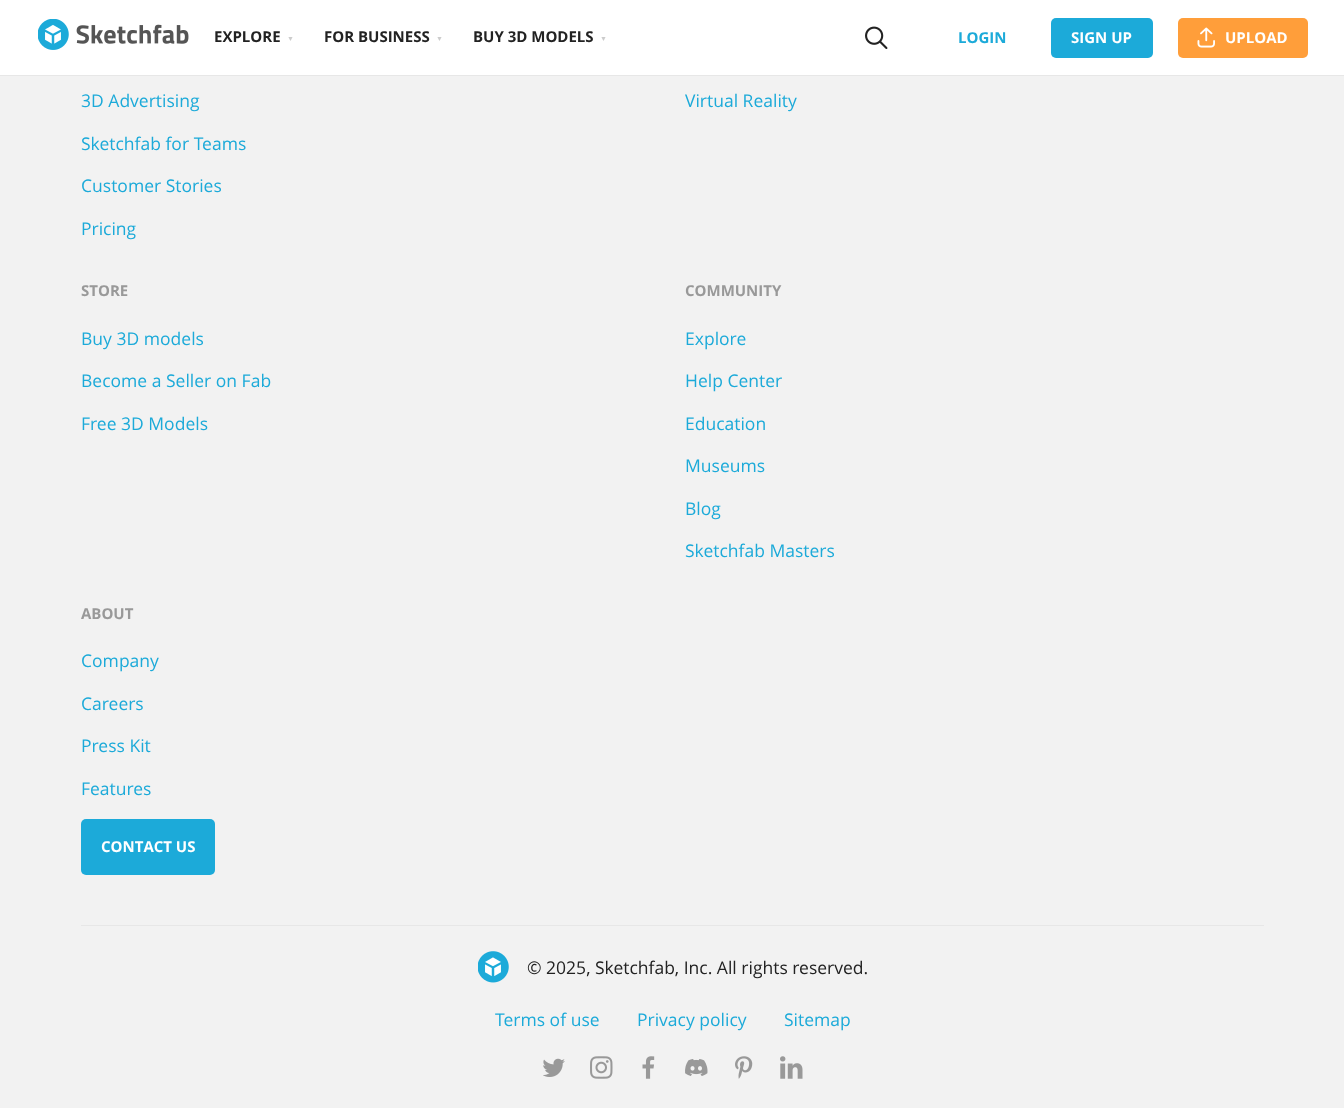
(async () => {
  const canvas = document.querySelector("canvas");
  canvas.width = 1344;
  canvas.height = 1108;
  const ctx = canvas.getContext("2d");
  ctx.miterLimit = 4;
  ctx.fontKerning = "normal";
  async function loadImage(src) {
    const img = new Image();
    img.src = src;
    await img.decode();
    return img;
  }

  ctx.fillStyle = "#f2f2f2";
  ctx.fillRect(0, 0, 1344, 1108);
  ctx.fillStyle = "#ffffff";
  ctx.fillRect(0, 0, 1344, 75);
  ctx.fillStyle = "#e7e7e7";
  ctx.fillRect(0, 75, 1344, 1);
  ctx.drawImage(await loadImage("img/1.png"), 38, 19, 151, 31);
  ctx.drawImage(await loadImage("img/2.png"), 865, 26, 23, 23);
  ctx.fillStyle = "#1caad9";
  ctx.beginPath();
  ctx.roundRect(1051, 18, 102, 40, 5);
  ctx.fill();
  ctx.fillStyle = "#ff9e3a";
  ctx.beginPath();
  ctx.roundRect(1178, 18, 130, 40, 5);
  ctx.fill();
  ctx.drawImage(await loadImage("img/3.png"), 1197, 27, 18, 21);
  ctx.fillStyle = "#1caad9";
  ctx.beginPath();
  ctx.roundRect(81, 819, 134, 56, 5);
  ctx.fill();
  ctx.fillStyle = "#e7e7e7";
  ctx.fillRect(81, 925, 1183, 1);
  ctx.drawImage(await loadImage("img/4.png"), 478, 951, 31, 32);
  ctx.drawImage(await loadImage("img/5.png"), 543, 1058, 22, 19);
  ctx.drawImage(await loadImage("img/6.png"), 590, 1056, 23, 23);
  ctx.drawImage(await loadImage("img/7.png"), 642, 1056, 13, 23);
  ctx.drawImage(await loadImage("img/8.png"), 685, 1059, 23, 17);
  ctx.drawImage(await loadImage("img/9.png"), 735, 1056, 18, 23);
  ctx.drawImage(await loadImage("img/10.png"), 780, 1056, 23, 23);
  ctx.font = "bold 15px Open Sans";
  ctx.fillStyle = "#222222";
  ctx.fillText("EXPLORE", 214, 42);
  ctx.letterSpacing = "6px";
  ctx.font = "7px Liberation Sans";
  ctx.fillStyle = "#cccccc";
  ctx.fillText("▼", 287, 41);
  ctx.letterSpacing = "0px";
  ctx.font = "bold 15px Open Sans";
  ctx.fillStyle = "#222222";
  ctx.fillText("FOR BUSINESS", 324, 42);
  ctx.letterSpacing = "6px";
  ctx.font = "7px Liberation Sans";
  ctx.fillStyle = "#cccccc";
  ctx.fillText("▼", 436, 41);
  ctx.letterSpacing = "0px";
  ctx.font = "bold 15px Open Sans";
  ctx.fillStyle = "#222222";
  ctx.fillText("BUY 3D MODELS", 473, 42);
  ctx.letterSpacing = "6px";
  ctx.font = "7px Liberation Sans";
  ctx.fillStyle = "#cccccc";
  ctx.fillText("▼", 600, 41);
  ctx.letterSpacing = "0px";
  ctx.font = "bold 15px Open Sans";
  ctx.fillStyle = "#1caad9";
  ctx.fillText("LOGIN", 958, 43);
  ctx.fillStyle = "#ffffff";
  ctx.fillText("SIGN UP", 1071, 43);
  ctx.fillText("UPLOAD", 1225, 43);
  ctx.font = "17.5px Open Sans";
  ctx.fillStyle = "#1caad9";
  for (const [text, x, y] of [
    ["3D Advertising", 81, 107],
    ["Sketchfab for Teams", 81, 150],
    ["Customer Stories", 81, 192],
    ["Pricing", 81, 235],
    ["Virtual Reality", 685, 107],
  ]) {
    ctx.fillText(text, x, y);
  }
  ctx.font = "bold 15px Open Sans";
  ctx.fillStyle = "#999999";
  ctx.fillText("STORE", 81, 296);
  ctx.font = "17.5px Open Sans";
  ctx.fillStyle = "#1caad9";
  for (const [text, x, y] of [
    ["Buy 3D models", 81, 345],
    ["Become a Seller on Fab", 81, 387],
    ["Free 3D Models", 81, 430],
  ]) {
    ctx.fillText(text, x, y);
  }
  ctx.font = "bold 15px Open Sans";
  ctx.fillStyle = "#999999";
  ctx.fillText("COMMUNITY", 685, 296);
  ctx.font = "17.5px Open Sans";
  ctx.fillStyle = "#1caad9";
  for (const [text, x, y] of [
    ["Explore", 685, 345],
    ["Help Center", 685, 387],
    ["Education", 685, 430],
    ["Museums", 685, 472],
    ["Blog", 685, 515],
    ["Sketchfab Masters", 685, 557],
  ]) {
    ctx.fillText(text, x, y);
  }
  ctx.font = "bold 15px Open Sans";
  ctx.fillStyle = "#999999";
  ctx.fillText("ABOUT", 81, 619);
  ctx.font = "17.5px Open Sans";
  ctx.fillStyle = "#1caad9";
  for (const [text, x, y] of [
    ["Company", 81, 667],
    ["Careers", 81, 710],
    ["Press Kit", 81, 752],
    ["Features", 81, 795],
  ]) {
    ctx.fillText(text, x, y);
  }
  ctx.font = "bold 15px Open Sans";
  ctx.fillStyle = "#ffffff";
  ctx.fillText("CONTACT US", 101, 852);
  ctx.font = "17.5px Open Sans";
  ctx.fillStyle = "#222222";
  ctx.fillText("© 2025, Sketchfab, Inc. All rights reserved.", 527, 974);
  ctx.fillStyle = "#1caad9";
  for (const [text, x, y] of [
    ["Terms of use", 495, 1026],
    ["Privacy policy", 637, 1026],
    ["Sitemap", 784, 1026],
  ]) {
    ctx.fillText(text, x, y);
  }
})();
